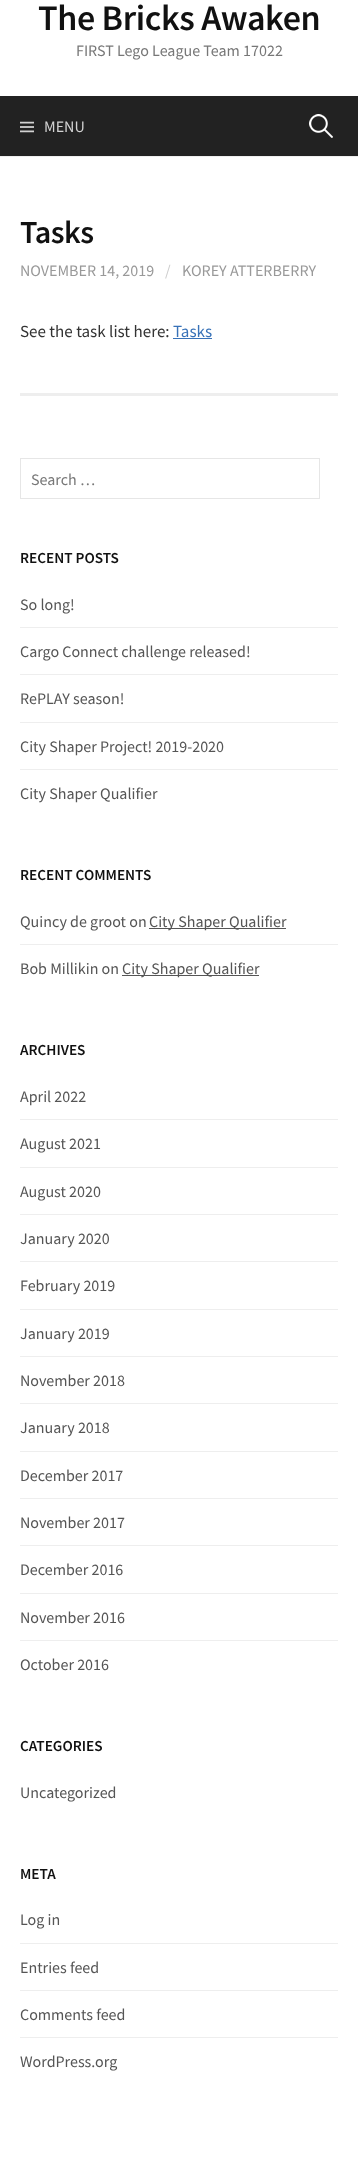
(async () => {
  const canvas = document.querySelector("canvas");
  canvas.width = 358;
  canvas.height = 2157;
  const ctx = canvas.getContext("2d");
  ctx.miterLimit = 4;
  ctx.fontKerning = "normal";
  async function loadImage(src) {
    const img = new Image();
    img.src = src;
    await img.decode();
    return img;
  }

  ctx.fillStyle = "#ffffff";
  ctx.fillRect(0, 0, 358, 2157);
  ctx.fillStyle = "#eeeeee";
  ctx.fillRect(0, 156, 358, 1);
  ctx.fillStyle = "#222222";
  ctx.fillRect(0, 96, 358, 60);
  ctx.drawImage(await loadImage("img/1.png"), 20, 121, 14, 12);
  ctx.drawImage(await loadImage("img/2.png"), 309, 114, 24, 24);
  ctx.fillStyle = "#3872b8";
  ctx.fillRect(173, 338, 39, 1);
  ctx.fillStyle = "#eeeeee";
  ctx.fillRect(20, 393, 318, 3);
  ctx.strokeStyle = "#e6e6e6";
  ctx.strokeRect(20.5, 458.5, 299, 40);
  for (const [x, y, w, h, color] of [
    [20, 627, 318, 1, "#eeeeee"],
    [20, 674, 318, 1, "#eeeeee"],
    [20, 722, 318, 1, "#eeeeee"],
    [20, 769, 318, 1, "#eeeeee"],
    [149, 928, 137, 1, "#555555"],
    [20, 944, 318, 1, "#eeeeee"],
    [122, 975, 137, 1, "#555555"],
    [20, 1119, 318, 1, "#eeeeee"],
    [20, 1167, 318, 1, "#eeeeee"],
    [20, 1214, 318, 1, "#eeeeee"],
    [20, 1261, 318, 1, "#eeeeee"],
    [20, 1309, 318, 1, "#eeeeee"],
    [20, 1356, 318, 1, "#eeeeee"],
    [20, 1403, 318, 1, "#eeeeee"],
    [20, 1451, 318, 1, "#eeeeee"],
    [20, 1498, 318, 1, "#eeeeee"],
    [20, 1545, 318, 1, "#eeeeee"],
    [20, 1593, 318, 1, "#eeeeee"],
    [20, 1640, 318, 1, "#eeeeee"],
    [20, 1943, 318, 1, "#eeeeee"],
    [20, 1990, 318, 1, "#eeeeee"],
    [20, 2037, 318, 1, "#eeeeee"],
  ]) {
    ctx.fillStyle = color;
    ctx.fillRect(x, y, w, h);
  }
  ctx.letterSpacing = "-0.4px";
  ctx.font = "600 36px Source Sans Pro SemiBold";
  ctx.fillStyle = "#111111";
  ctx.fillText("The Bricks Awaken", 38, 30);
  ctx.letterSpacing = "0px";
  ctx.font = "16px Source Sans Pro";
  ctx.fillStyle = "#777777";
  ctx.fillText("FIRST Lego League Team 17022", 76, 56);
  ctx.fillStyle = "#d3d3d3";
  ctx.fillText("MENU", 44, 132);
  ctx.letterSpacing = "-0.5px";
  ctx.font = "600 32px Source Sans Pro SemiBold";
  ctx.fillStyle = "#111111";
  ctx.fillText("Tasks", 20, 243);
  ctx.letterSpacing = "0px";
  ctx.font = "16px Source Sans Pro";
  ctx.fillStyle = "#999999";
  ctx.fillText("NOVEMBER 14, 2019", 20, 276);
  ctx.fillStyle = "#cccccc";
  ctx.fillText("/", 165, 276);
  ctx.fillStyle = "#999999";
  ctx.fillText("KOREY ATTERBERRY", 182, 276);
  ctx.font = "17px Source Sans Pro";
  ctx.fillStyle = "#333333";
  ctx.fillText("See the task list here:", 20, 337);
  ctx.fillStyle = "#3872b8";
  ctx.fillText("Tasks", 173, 337);
  ctx.font = "16px Source Sans Pro";
  ctx.fillStyle = "#777777";
  ctx.fillText("Search …", 31, 485);
  ctx.font = "600 15.25px Source Sans Pro SemiBold";
  ctx.fillStyle = "#111111";
  ctx.fillText("RECENT POSTS", 20, 563);
  ctx.font = "16px Source Sans Pro";
  ctx.fillStyle = "#555555";
  for (const [text, x, y] of [
    ["So long!", 20, 610],
    ["Cargo Connect challenge released!", 20, 657],
    ["RePLAY season!", 20, 704],
    ["City Shaper Project! 2019-2020", 20, 752],
    ["City Shaper Qualifier", 20, 799],
  ]) {
    ctx.fillText(text, x, y);
  }
  ctx.font = "600 15.25px Source Sans Pro SemiBold";
  ctx.fillStyle = "#111111";
  ctx.fillText("RECENT COMMENTS", 20, 880);
  ctx.font = "16px Source Sans Pro";
  ctx.fillStyle = "#555555";
  for (const [text, x, y] of [
    ["Quincy de groot on", 20, 927],
    ["City Shaper Qualifier", 149, 927],
    ["Bob Millikin on", 20, 974],
    ["City Shaper Qualifier", 122, 974],
  ]) {
    ctx.fillText(text, x, y);
  }
  ctx.font = "600 15.25px Source Sans Pro SemiBold";
  ctx.fillStyle = "#111111";
  ctx.fillText("ARCHIVES", 20, 1055);
  ctx.font = "16px Source Sans Pro";
  ctx.fillStyle = "#555555";
  for (const [text, x, y] of [
    ["April 2022", 20, 1102],
    ["August 2021", 20, 1149],
    ["August 2020", 20, 1197],
    ["January 2020", 20, 1244],
    ["February 2019", 20, 1291],
    ["January 2019", 20, 1339],
    ["November 2018", 20, 1386],
    ["January 2018", 20, 1433],
    ["December 2017", 20, 1481],
    ["November 2017", 20, 1528],
    ["December 2016", 20, 1575],
    ["November 2016", 20, 1623],
    ["October 2016", 20, 1670],
  ]) {
    ctx.fillText(text, x, y);
  }
  ctx.font = "600 15.25px Source Sans Pro SemiBold";
  ctx.fillStyle = "#111111";
  ctx.fillText("CATEGORIES", 20, 1751);
  ctx.font = "16px Source Sans Pro";
  ctx.fillStyle = "#555555";
  ctx.fillText("Uncategorized", 20, 1798);
  ctx.font = "600 15.25px Source Sans Pro SemiBold";
  ctx.fillStyle = "#111111";
  ctx.fillText("META", 20, 1879);
  ctx.font = "16px Source Sans Pro";
  ctx.fillStyle = "#555555";
  for (const [text, x, y] of [
    ["Log in", 20, 1925],
    ["Entries feed", 20, 1973],
    ["Comments feed", 20, 2020],
    ["WordPress.org", 20, 2067],
  ]) {
    ctx.fillText(text, x, y);
  }
})();
